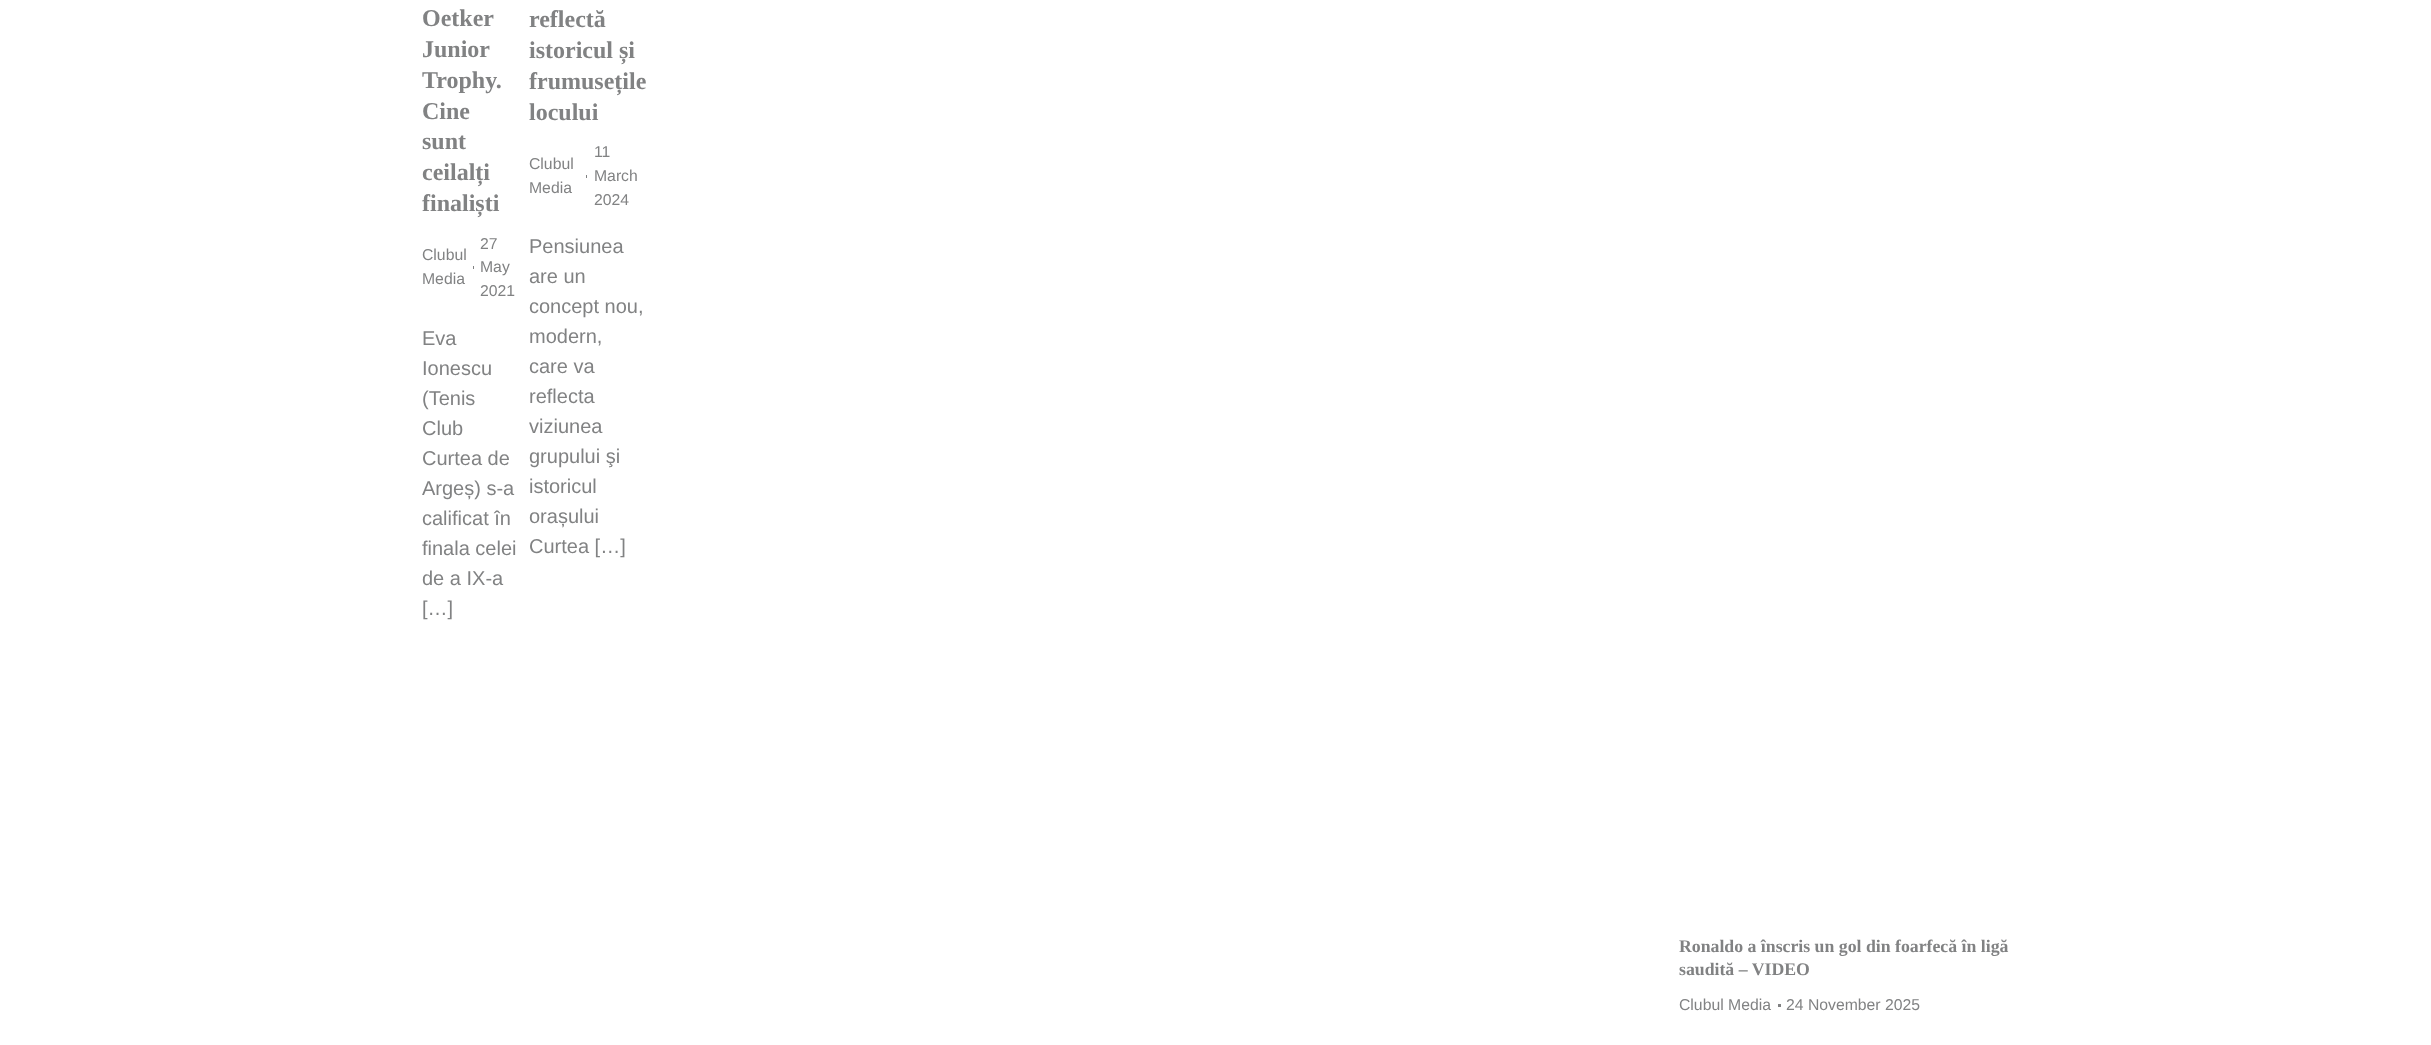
(async () => {
  const canvas = document.querySelector("canvas");
  canvas.width = 2431;
  canvas.height = 1045;
  const ctx = canvas.getContext("2d");
  ctx.miterLimit = 4;
  ctx.fontKerning = "normal";

  ctx.fillStyle = "#ffffff";
  ctx.fillRect(0, 0, 2431, 1045);
  for (const [x, y, w, h, color] of [
    [473, 266, 1, 3, "#818283"],
    [586, 175, 1, 3, "#818283"],
    [1778, 1004, 3, 3, "#818283"],
  ]) {
    ctx.fillStyle = color;
    ctx.fillRect(x, y, w, h);
  }
  ctx.font = "bold 24px Liberation Serif";
  for (const [text, x, y] of [
    ["Oetker", 422, 26],
    ["Junior", 422, 57],
    ["Trophy.", 422, 88],
    ["Cine", 422, 119],
    ["sunt", 422, 149],
    ["ceilalți", 422, 180],
    ["finaliști", 422, 211],
  ]) {
    ctx.fillText(text, x, y);
  }
  ctx.font = "15.75px Liberation Sans";
  for (const [text, x, y] of [
    ["Clubul", 422, 260],
    ["Media", 422, 284],
    ["27", 480, 249],
    ["May", 480, 272],
    ["2021", 480, 296],
  ]) {
    ctx.fillText(text, x, y);
  }
  ctx.font = "20px Liberation Sans";
  for (const [text, x, y] of [
    ["Eva", 422, 345],
    ["Ionescu", 422, 375],
    ["(Tenis", 422, 405],
    ["Club", 422, 435],
    ["Curtea de", 422, 465],
    ["Argeș) s-a", 422, 495],
    ["calificat în", 422, 525],
    ["finala celei", 422, 555],
    ["de a IX-a", 422, 585],
    ["[…]", 422, 615],
  ]) {
    ctx.fillText(text, x, y);
  }
  ctx.font = "bold 24px Liberation Serif";
  for (const [text, x, y] of [
    ["reflectă", 529, 27],
    ["istoricul și", 529, 58],
    ["frumusețile", 529, 89],
    ["locului", 529, 120],
  ]) {
    ctx.fillText(text, x, y);
  }
  ctx.font = "15.75px Liberation Sans";
  for (const [text, x, y] of [
    ["Clubul", 529, 169],
    ["Media", 529, 193],
    ["11", 594, 157],
    ["March", 594, 181],
    ["2024", 594, 205],
  ]) {
    ctx.fillText(text, x, y);
  }
  ctx.font = "20px Liberation Sans";
  for (const [text, x, y] of [
    ["Pensiunea", 529, 253],
    ["are un", 529, 283],
    ["concept nou,", 529, 313],
    ["modern,", 529, 343],
    ["care va", 529, 373],
    ["reflecta", 529, 403],
    ["viziunea", 529, 433],
    ["grupului şi", 529, 463],
    ["istoricul", 529, 493],
    ["orașului", 529, 523],
    ["Curtea […]", 529, 553],
  ]) {
    ctx.fillText(text, x, y);
  }
  ctx.font = "bold 17.75px Liberation Serif";
  ctx.fillText("Ronaldo a înscris un gol din foarfecă în ligă", 1679, 952);
  ctx.fillText("saudită – VIDEO", 1679, 975);
  ctx.font = "15.75px Liberation Sans";
  ctx.fillText("Clubul Media", 1679, 1010);
  ctx.fillText("24 November 2025", 1786, 1010);
})();
